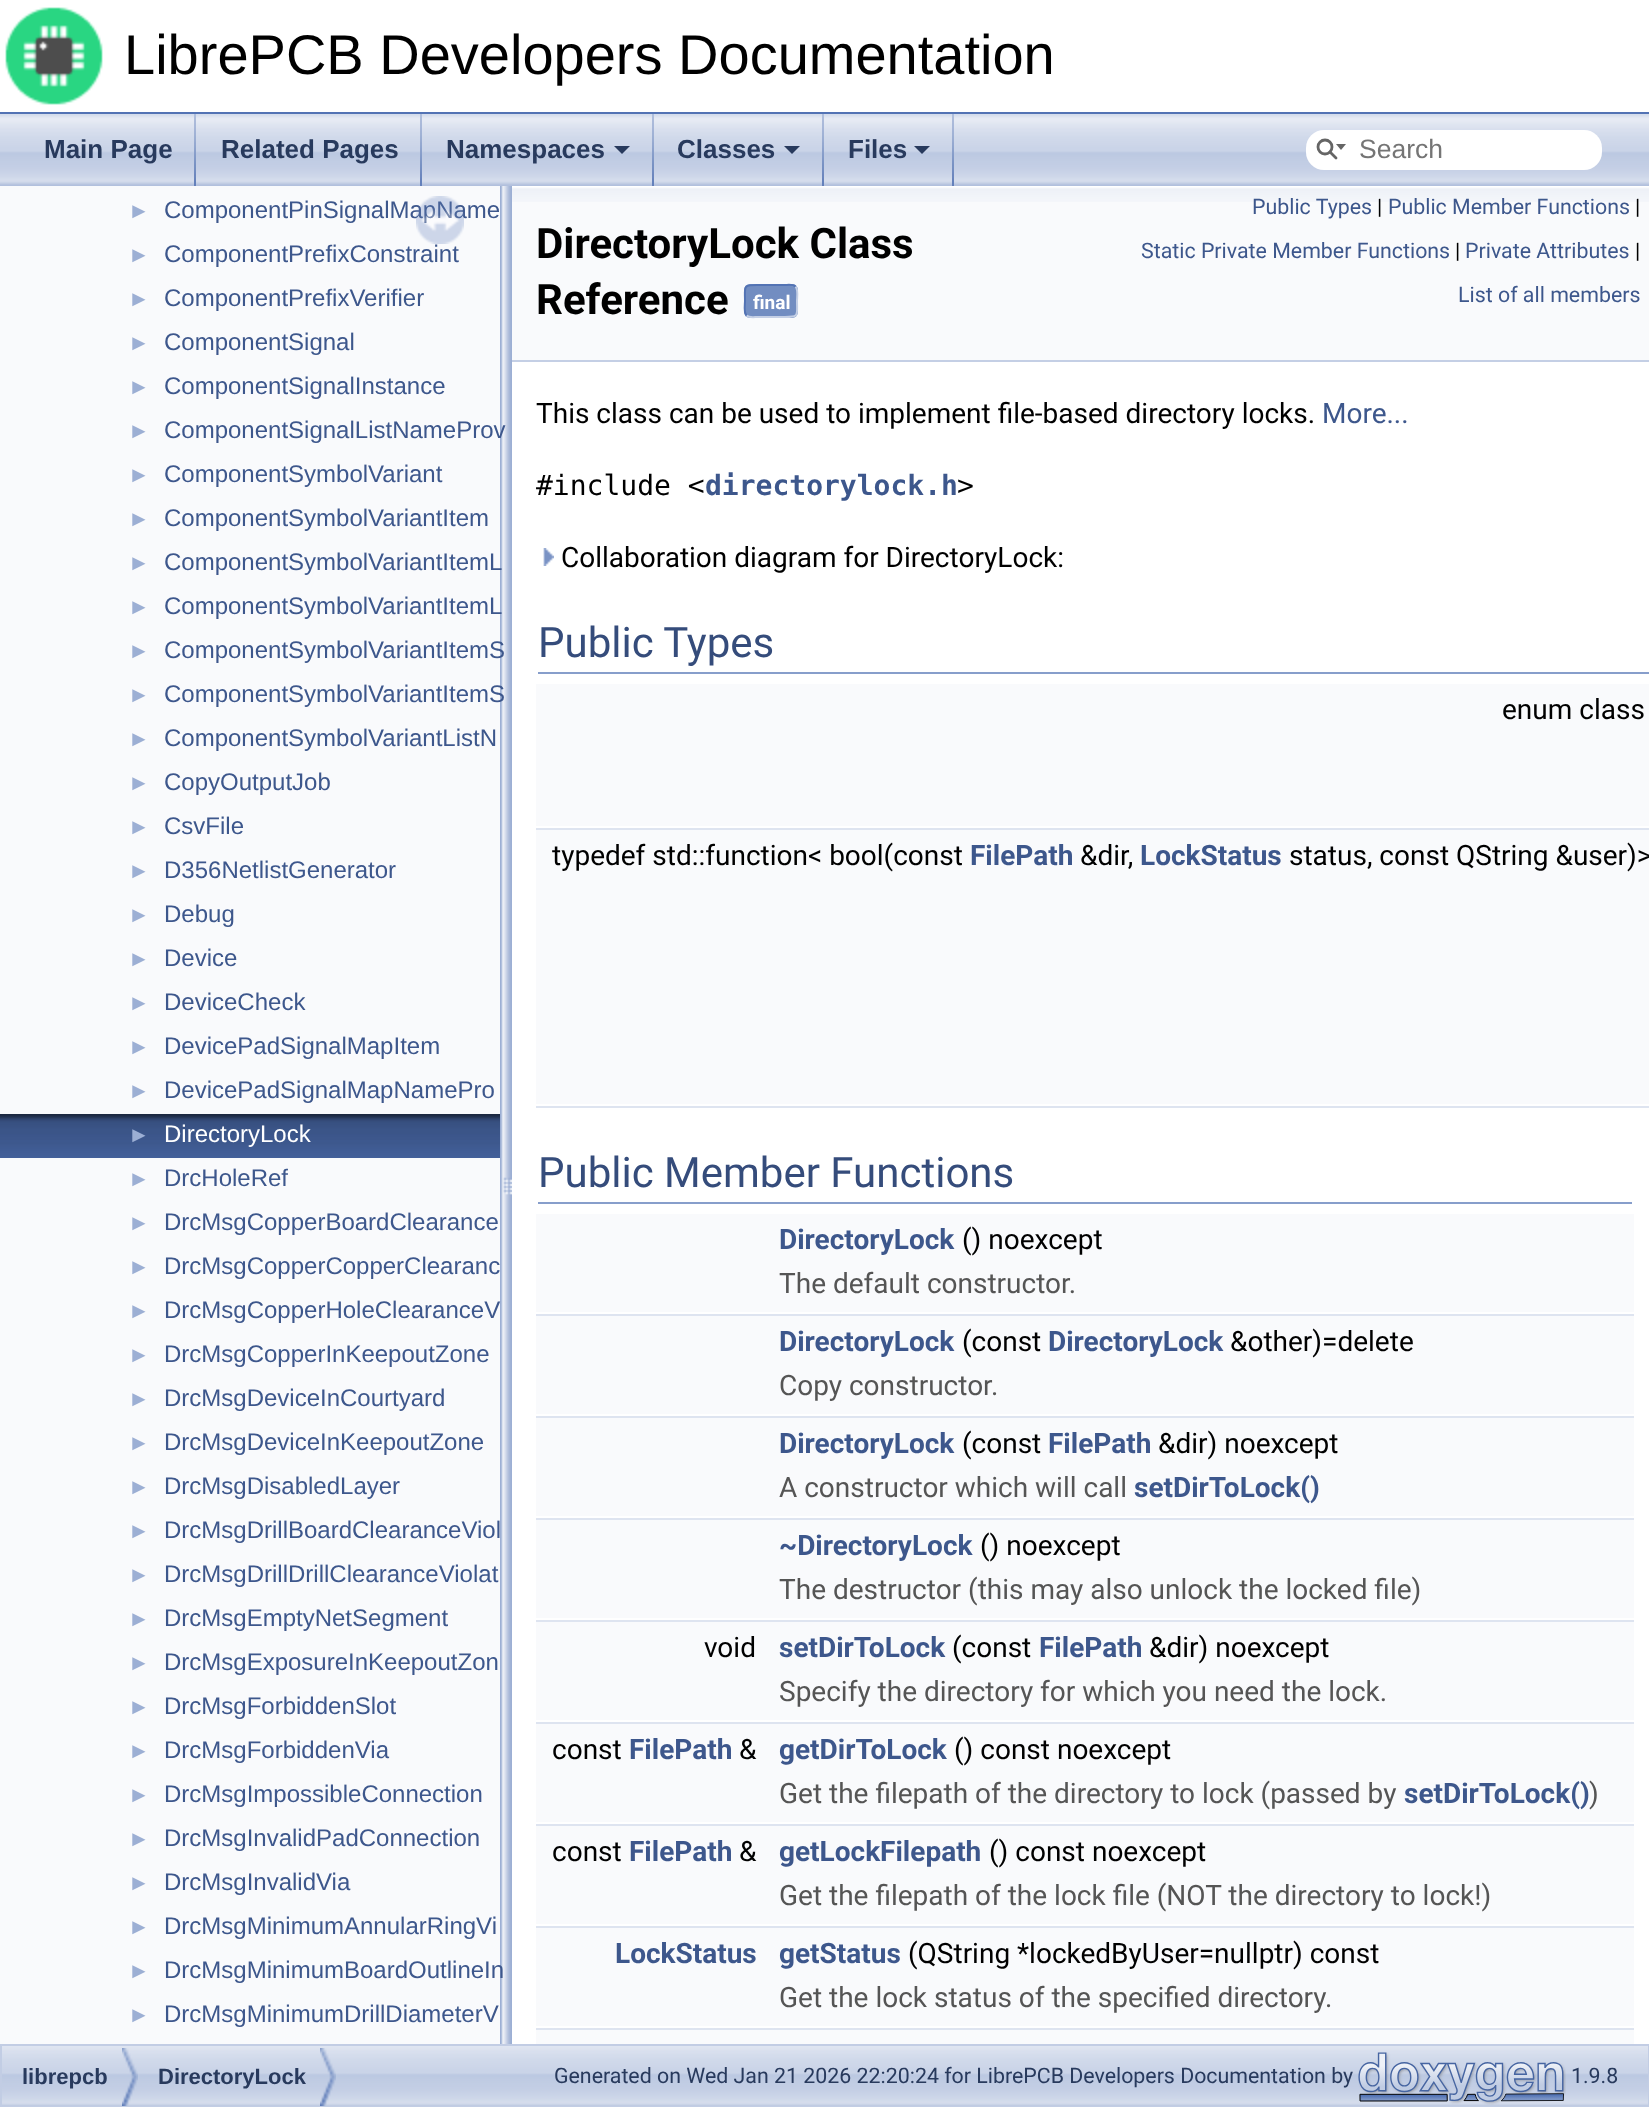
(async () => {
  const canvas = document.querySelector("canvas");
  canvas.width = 1649;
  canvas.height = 2107;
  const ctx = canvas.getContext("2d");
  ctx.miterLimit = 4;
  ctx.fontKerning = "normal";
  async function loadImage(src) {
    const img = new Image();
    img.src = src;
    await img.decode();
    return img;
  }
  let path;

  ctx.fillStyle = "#ffffff";
  ctx.fillRect(0, 0, 1649, 2107);
  ctx.fillStyle = "#5373b4";
  ctx.fillRect(0, 112, 1649, 2);
  ctx.drawImage(await loadImage("img/1.png"), 5, 7, 98, 98);
  ctx.drawImage(await loadImage("img/2.png"), 0, 114, 1649, 72);
  ctx.drawImage(await loadImage("img/3.png"), 194, 114, 2, 72);
  ctx.drawImage(await loadImage("img/3.png"), 420, 114, 2, 72);
  ctx.drawImage(await loadImage("img/3.png"), 652, 114, 2, 72);
  ctx.fillStyle = "#283a5d";
  path = new Path2D("M614 146H630L622 154Z");
  ctx.fill(path);
  ctx.drawImage(await loadImage("img/3.png"), 822, 114, 2, 72);
  path = new Path2D("M784 146H800L792 154Z");
  ctx.fill(path);
  ctx.drawImage(await loadImage("img/3.png"), 952, 114, 2, 72);
  path = new Path2D("M914 146H930L922 154Z");
  ctx.fill(path);
  ctx.fillStyle = "#ffffff";
  ctx.beginPath();
  ctx.roundRect(1306, 130, 296, 40, 18);
  ctx.fill();
  ctx.beginPath();
  ctx.arc(1325, 147, 7, 0, Math.PI * 2);
  ctx.strokeStyle = "#656565";
  ctx.lineWidth = 2.8;
  ctx.stroke();
  ctx.fillStyle = "#656565";
  path = new Path2D("M1336 144L1341 150L1346 144Z");
  ctx.fill(path);
  path = new Path2D("M1330 152L1336 158");
  ctx.lineCap = "round";
  ctx.stroke(path);
  ctx.fillStyle = "#f9fafc";
  ctx.fillRect(0, 186, 500, 1858);
  ctx.drawImage(await loadImage("img/5.png"), 0, 1114, 500, 44);
  ctx.drawImage(await loadImage("img/6.png"), 500, 186, 12, 1858);
  ctx.fillRect(512, 202, 1137, 158);
  ctx.drawImage(await loadImage("img/7.png"), 512, 186, 1137, 16);
  ctx.fillStyle = "#c4cfe5";
  ctx.fillRect(512, 360, 1137, 2);
  ctx.fillStyle = "#728dc1";
  ctx.beginPath();
  ctx.roundRect(744, 284, 54, 34, 6);
  ctx.fill();
  path = new Path2D("M795.5 286.5C798.5 289.5 797 297.5 797 301C797 315.5 799.5 317 785 317H757C754.5 317 749 318 746.5 315.5");
  ctx.strokeStyle = "#c4cfe5";
  ctx.lineWidth = 2;
  ctx.lineCap = "butt";
  ctx.stroke(path);
  path = new Path2D("M746.5 315.5C743.5 312.5 745 304.5 745 301C745 286.5 742.5 285 757 285H785C787.5 285 793 284 795.5 286.5");
  ctx.strokeStyle = "#5373b4";
  ctx.stroke(path);
  ctx.drawImage(await loadImage("img/8.png"), 543, 548, 11, 18);
  for (const [x, y, w, h, color] of [
    [538, 672, 1111, 2, "#879ecb"],
    [536, 684, 1113, 142, "#f9fafc"],
    [536, 828, 1113, 2, "#dee4f0"],
    [536, 830, 1113, 274, "#f9fafc"],
    [536, 1106, 1113, 2, "#dee4f0"],
    [538, 1202, 1094, 2, "#879ecb"],
    [536, 1214, 1098, 46, "#f9fafc"],
    [536, 1260, 1098, 52, "#f9fafc"],
    [536, 1314, 1098, 2, "#dee4f0"],
    [536, 1316, 1098, 46, "#f9fafc"],
    [536, 1362, 1098, 52, "#f9fafc"],
    [536, 1416, 1098, 2, "#dee4f0"],
    [536, 1418, 1098, 46, "#f9fafc"],
    [536, 1464, 1098, 52, "#f9fafc"],
    [536, 1518, 1098, 2, "#dee4f0"],
    [536, 1520, 1098, 46, "#f9fafc"],
    [536, 1566, 1098, 52, "#f9fafc"],
    [536, 1620, 1098, 2, "#dee4f0"],
    [536, 1622, 1098, 46, "#f9fafc"],
    [536, 1668, 1098, 52, "#f9fafc"],
    [536, 1722, 1098, 2, "#dee4f0"],
    [536, 1724, 1098, 46, "#f9fafc"],
    [536, 1770, 1098, 52, "#f9fafc"],
    [536, 1824, 1098, 2, "#dee4f0"],
    [536, 1826, 1098, 46, "#f9fafc"],
    [536, 1872, 1098, 52, "#f9fafc"],
    [536, 1926, 1098, 2, "#dee4f0"],
    [536, 1928, 1098, 46, "#f9fafc"],
    [536, 1974, 1098, 52, "#f9fafc"],
    [536, 2028, 1098, 2, "#dee4f0"],
    [536, 2030, 1098, 14, "#f9fafc"],
  ]) {
    ctx.fillStyle = color;
    ctx.fillRect(x, y, w, h);
  }
  ctx.drawImage(await loadImage("img/9.png"), 2, 2046, 1646, 60);
  ctx.strokeStyle = "#c2cde4";
  ctx.strokeRect(1, 2045, 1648, 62);
  ctx.drawImage(await loadImage("img/10.png"), 122, 2048, 16, 58);
  ctx.drawImage(await loadImage("img/10.png"), 320, 2048, 16, 58);
  ctx.drawImage(await loadImage("img/11.png"), 1358, 2052, 208, 53);
  ctx.font = "56px Liberation Sans";
  ctx.fillStyle = "#000000";
  ctx.fillText("LibrePCB Developers Documentation", 124, 74);
  ctx.font = "bold 26px Liberation Sans";
  ctx.fillStyle = "#283a5d";
  for (const [text, x, y] of [
    ["Main Page", 44, 158],
    ["Related Pages", 221, 158],
    ["Namespaces", 446, 158],
    ["Classes", 677, 158],
    ["Files", 848, 158],
  ]) {
    ctx.fillText(text, x, y);
  }
  ctx.font = "26.5px Liberation Sans";
  ctx.fillStyle = "#757575";
  ctx.fillText("Search", 1359, 158);
  ctx.font = "22px Liberation Sans";
  ctx.fillStyle = "#9cafd4";
  ctx.fillText("►", 128, 218);
  ctx.font = "24px Liberation Sans";
  ctx.fillStyle = "#3d578c";
  ctx.fillText("ComponentPinSignalMapName", 164, 218);
  ctx.drawImage(await loadImage("img/4.png"), 416, 196, 48, 48);
  ctx.font = "22px Liberation Sans";
  ctx.fillStyle = "#9cafd4";
  ctx.fillText("►", 128, 262);
  ctx.font = "24px Liberation Sans";
  ctx.fillStyle = "#3d578c";
  ctx.fillText("ComponentPrefixConstraint", 164, 262);
  ctx.font = "22px Liberation Sans";
  ctx.fillStyle = "#9cafd4";
  ctx.fillText("►", 128, 306);
  ctx.font = "24px Liberation Sans";
  ctx.fillStyle = "#3d578c";
  ctx.fillText("ComponentPrefixVerifier", 164, 306);
  ctx.font = "22px Liberation Sans";
  ctx.fillStyle = "#9cafd4";
  ctx.fillText("►", 128, 350);
  ctx.font = "24px Liberation Sans";
  ctx.fillStyle = "#3d578c";
  ctx.fillText("ComponentSignal", 164, 350);
  ctx.font = "22px Liberation Sans";
  ctx.fillStyle = "#9cafd4";
  ctx.fillText("►", 128, 394);
  ctx.font = "24px Liberation Sans";
  ctx.fillStyle = "#3d578c";
  ctx.fillText("ComponentSignalInstance", 164, 394);
  ctx.font = "22px Liberation Sans";
  ctx.fillStyle = "#9cafd4";
  ctx.fillText("►", 128, 438);
  ctx.font = "24px Liberation Sans";
  ctx.fillStyle = "#3d578c";
  ctx.fillText("ComponentSignalListNameProv", 164, 438);
  ctx.font = "22px Liberation Sans";
  ctx.fillStyle = "#9cafd4";
  ctx.fillText("►", 128, 482);
  ctx.font = "24px Liberation Sans";
  ctx.fillStyle = "#3d578c";
  ctx.fillText("ComponentSymbolVariant", 164, 482);
  ctx.font = "22px Liberation Sans";
  ctx.fillStyle = "#9cafd4";
  ctx.fillText("►", 128, 526);
  ctx.font = "24px Liberation Sans";
  ctx.fillStyle = "#3d578c";
  ctx.fillText("ComponentSymbolVariantItem", 164, 526);
  ctx.font = "22px Liberation Sans";
  ctx.fillStyle = "#9cafd4";
  ctx.fillText("►", 128, 570);
  ctx.font = "24px Liberation Sans";
  ctx.fillStyle = "#3d578c";
  ctx.fillText("ComponentSymbolVariantItemL", 164, 570);
  ctx.font = "22px Liberation Sans";
  ctx.fillStyle = "#9cafd4";
  ctx.fillText("►", 128, 614);
  ctx.font = "24px Liberation Sans";
  ctx.fillStyle = "#3d578c";
  ctx.fillText("ComponentSymbolVariantItemL", 164, 614);
  ctx.font = "22px Liberation Sans";
  ctx.fillStyle = "#9cafd4";
  ctx.fillText("►", 128, 658);
  ctx.font = "24px Liberation Sans";
  ctx.fillStyle = "#3d578c";
  ctx.fillText("ComponentSymbolVariantItemS", 164, 658);
  ctx.font = "22px Liberation Sans";
  ctx.fillStyle = "#9cafd4";
  ctx.fillText("►", 128, 702);
  ctx.font = "24px Liberation Sans";
  ctx.fillStyle = "#3d578c";
  ctx.fillText("ComponentSymbolVariantItemS", 164, 702);
  ctx.font = "22px Liberation Sans";
  ctx.fillStyle = "#9cafd4";
  ctx.fillText("►", 128, 746);
  ctx.font = "24px Liberation Sans";
  ctx.fillStyle = "#3d578c";
  ctx.fillText("ComponentSymbolVariantListN", 164, 746);
  ctx.font = "22px Liberation Sans";
  ctx.fillStyle = "#9cafd4";
  ctx.fillText("►", 128, 790);
  ctx.font = "24px Liberation Sans";
  ctx.fillStyle = "#3d578c";
  ctx.fillText("CopyOutputJob", 164, 790);
  ctx.font = "22px Liberation Sans";
  ctx.fillStyle = "#9cafd4";
  ctx.fillText("►", 128, 834);
  ctx.font = "24px Liberation Sans";
  ctx.fillStyle = "#3d578c";
  ctx.fillText("CsvFile", 164, 834);
  ctx.font = "22px Liberation Sans";
  ctx.fillStyle = "#9cafd4";
  ctx.fillText("►", 128, 878);
  ctx.font = "24px Liberation Sans";
  ctx.fillStyle = "#3d578c";
  ctx.fillText("D356NetlistGenerator", 164, 878);
  ctx.font = "22px Liberation Sans";
  ctx.fillStyle = "#9cafd4";
  ctx.fillText("►", 128, 922);
  ctx.font = "24px Liberation Sans";
  ctx.fillStyle = "#3d578c";
  ctx.fillText("Debug", 164, 922);
  ctx.font = "22px Liberation Sans";
  ctx.fillStyle = "#9cafd4";
  ctx.fillText("►", 128, 966);
  ctx.font = "24px Liberation Sans";
  ctx.fillStyle = "#3d578c";
  ctx.fillText("Device", 164, 966);
  ctx.font = "22px Liberation Sans";
  ctx.fillStyle = "#9cafd4";
  ctx.fillText("►", 128, 1010);
  ctx.font = "24px Liberation Sans";
  ctx.fillStyle = "#3d578c";
  ctx.fillText("DeviceCheck", 164, 1010);
  ctx.font = "22px Liberation Sans";
  ctx.fillStyle = "#9cafd4";
  ctx.fillText("►", 128, 1054);
  ctx.font = "24px Liberation Sans";
  ctx.fillStyle = "#3d578c";
  ctx.fillText("DevicePadSignalMapItem", 164, 1054);
  ctx.font = "22px Liberation Sans";
  ctx.fillStyle = "#9cafd4";
  ctx.fillText("►", 128, 1098);
  ctx.font = "24px Liberation Sans";
  ctx.fillStyle = "#3d578c";
  ctx.fillText("DevicePadSignalMapNamePro", 164, 1098);
  ctx.font = "22px Liberation Sans";
  ctx.fillStyle = "#9cafd4";
  ctx.fillText("►", 128, 1142);
  ctx.font = "24px Liberation Sans";
  ctx.fillStyle = "#ffffff";
  ctx.fillText("DirectoryLock", 164, 1142);
  ctx.font = "22px Liberation Sans";
  ctx.fillStyle = "#9cafd4";
  ctx.fillText("►", 128, 1186);
  ctx.font = "24px Liberation Sans";
  ctx.fillStyle = "#3d578c";
  ctx.fillText("DrcHoleRef", 164, 1186);
  ctx.font = "22px Liberation Sans";
  ctx.fillStyle = "#9cafd4";
  ctx.fillText("►", 128, 1230);
  ctx.font = "24px Liberation Sans";
  ctx.fillStyle = "#3d578c";
  ctx.fillText("DrcMsgCopperBoardClearance", 164, 1230);
  ctx.font = "22px Liberation Sans";
  ctx.fillStyle = "#9cafd4";
  ctx.fillText("►", 128, 1274);
  ctx.font = "24px Liberation Sans";
  ctx.fillStyle = "#3d578c";
  ctx.fillText("DrcMsgCopperCopperClearanc", 164, 1274);
  ctx.font = "22px Liberation Sans";
  ctx.fillStyle = "#9cafd4";
  ctx.fillText("►", 128, 1318);
  ctx.font = "24px Liberation Sans";
  ctx.fillStyle = "#3d578c";
  ctx.fillText("DrcMsgCopperHoleClearanceV", 164, 1318);
  ctx.font = "22px Liberation Sans";
  ctx.fillStyle = "#9cafd4";
  ctx.fillText("►", 128, 1362);
  ctx.font = "24px Liberation Sans";
  ctx.fillStyle = "#3d578c";
  ctx.fillText("DrcMsgCopperInKeepoutZone", 164, 1362);
  ctx.font = "22px Liberation Sans";
  ctx.fillStyle = "#9cafd4";
  ctx.fillText("►", 128, 1406);
  ctx.font = "24px Liberation Sans";
  ctx.fillStyle = "#3d578c";
  ctx.fillText("DrcMsgDeviceInCourtyard", 164, 1406);
  ctx.font = "22px Liberation Sans";
  ctx.fillStyle = "#9cafd4";
  ctx.fillText("►", 128, 1450);
  ctx.font = "24px Liberation Sans";
  ctx.fillStyle = "#3d578c";
  ctx.fillText("DrcMsgDeviceInKeepoutZone", 164, 1450);
  ctx.font = "22px Liberation Sans";
  ctx.fillStyle = "#9cafd4";
  ctx.fillText("►", 128, 1494);
  ctx.font = "24px Liberation Sans";
  ctx.fillStyle = "#3d578c";
  ctx.fillText("DrcMsgDisabledLayer", 164, 1494);
  ctx.font = "22px Liberation Sans";
  ctx.fillStyle = "#9cafd4";
  ctx.fillText("►", 128, 1538);
  ctx.font = "24px Liberation Sans";
  ctx.fillStyle = "#3d578c";
  ctx.fillText("DrcMsgDrillBoardClearanceViol", 164, 1538);
  ctx.font = "22px Liberation Sans";
  ctx.fillStyle = "#9cafd4";
  ctx.fillText("►", 128, 1582);
  ctx.font = "24px Liberation Sans";
  ctx.fillStyle = "#3d578c";
  ctx.fillText("DrcMsgDrillDrillClearanceViolat", 164, 1582);
  ctx.font = "22px Liberation Sans";
  ctx.fillStyle = "#9cafd4";
  ctx.fillText("►", 128, 1626);
  ctx.font = "24px Liberation Sans";
  ctx.fillStyle = "#3d578c";
  ctx.fillText("DrcMsgEmptyNetSegment", 164, 1626);
  ctx.font = "22px Liberation Sans";
  ctx.fillStyle = "#9cafd4";
  ctx.fillText("►", 128, 1670);
  ctx.font = "24px Liberation Sans";
  ctx.fillStyle = "#3d578c";
  ctx.fillText("DrcMsgExposureInKeepoutZon", 164, 1670);
  ctx.font = "22px Liberation Sans";
  ctx.fillStyle = "#9cafd4";
  ctx.fillText("►", 128, 1714);
  ctx.font = "24px Liberation Sans";
  ctx.fillStyle = "#3d578c";
  ctx.fillText("DrcMsgForbiddenSlot", 164, 1714);
  ctx.font = "22px Liberation Sans";
  ctx.fillStyle = "#9cafd4";
  ctx.fillText("►", 128, 1758);
  ctx.font = "24px Liberation Sans";
  ctx.fillStyle = "#3d578c";
  ctx.fillText("DrcMsgForbiddenVia", 164, 1758);
  ctx.font = "22px Liberation Sans";
  ctx.fillStyle = "#9cafd4";
  ctx.fillText("►", 128, 1802);
  ctx.font = "24px Liberation Sans";
  ctx.fillStyle = "#3d578c";
  ctx.fillText("DrcMsgImpossibleConnection", 164, 1802);
  ctx.font = "22px Liberation Sans";
  ctx.fillStyle = "#9cafd4";
  ctx.fillText("►", 128, 1846);
  ctx.font = "24px Liberation Sans";
  ctx.fillStyle = "#3d578c";
  ctx.fillText("DrcMsgInvalidPadConnection", 164, 1846);
  ctx.font = "22px Liberation Sans";
  ctx.fillStyle = "#9cafd4";
  ctx.fillText("►", 128, 1890);
  ctx.font = "24px Liberation Sans";
  ctx.fillStyle = "#3d578c";
  ctx.fillText("DrcMsgInvalidVia", 164, 1890);
  ctx.font = "22px Liberation Sans";
  ctx.fillStyle = "#9cafd4";
  ctx.fillText("►", 128, 1934);
  ctx.font = "24px Liberation Sans";
  ctx.fillStyle = "#3d578c";
  ctx.fillText("DrcMsgMinimumAnnularRingVi", 164, 1934);
  ctx.font = "22px Liberation Sans";
  ctx.fillStyle = "#9cafd4";
  ctx.fillText("►", 128, 1978);
  ctx.font = "24px Liberation Sans";
  ctx.fillStyle = "#3d578c";
  ctx.fillText("DrcMsgMinimumBoardOutlineIn", 164, 1978);
  ctx.font = "22px Liberation Sans";
  ctx.fillStyle = "#9cafd4";
  ctx.fillText("►", 128, 2022);
  ctx.font = "24px Liberation Sans";
  ctx.fillStyle = "#3d578c";
  ctx.fillText("DrcMsgMinimumDrillDiameterV", 164, 2022);
  ctx.font = "bold 42px Roboto";
  ctx.fillStyle = "#000000";
  ctx.fillText("DirectoryLock Class", 536, 258);
  ctx.fillText("Reference", 536, 314);
  ctx.font = "bold 19px Roboto";
  ctx.fillStyle = "#ffffff";
  ctx.fillText("final", 753, 309);
  ctx.font = "21.35px Roboto";
  ctx.fillStyle = "#3d578c";
  ctx.fillText("Public Types", 1252, 214);
  ctx.fillStyle = "#000000";
  ctx.fillText("|", 1377, 214);
  ctx.fillStyle = "#3d578c";
  ctx.fillText("Public Member Functions", 1388, 214);
  ctx.fillStyle = "#000000";
  ctx.fillText("|", 1635, 214);
  ctx.fillStyle = "#3d578c";
  ctx.fillText("Static Private Member Functions", 1141, 258);
  ctx.fillStyle = "#000000";
  ctx.fillText("|", 1455, 258);
  ctx.fillStyle = "#3d578c";
  ctx.fillText("Private Attributes", 1465, 258);
  ctx.fillStyle = "#000000";
  ctx.fillText("|", 1635, 258);
  ctx.fillStyle = "#3d578c";
  ctx.fillText("List of all members", 1458, 302);
  ctx.font = "28px Roboto";
  ctx.fillStyle = "#000000";
  ctx.fillText("This class can be used to implement file-based directory locks.", 536, 423);
  ctx.fillStyle = "#3d578c";
  ctx.fillText("More...", 1322, 423);
  ctx.font = "28px DejaVu Sans Mono";
  ctx.fillStyle = "#000000";
  ctx.fillText("#include <", 536, 495);
  ctx.font = "bold 28px DejaVu Sans Mono";
  ctx.fillStyle = "#3d578c";
  ctx.fillText("directorylock.h", 705, 495);
  ctx.font = "28px DejaVu Sans Mono";
  ctx.fillStyle = "#000000";
  ctx.fillText(">", 957, 495);
  ctx.font = "28px Roboto";
  ctx.fillText("Collaboration diagram for DirectoryLock:", 561, 567);
  ctx.font = "42px Roboto";
  ctx.fillStyle = "#354c7b";
  ctx.fillText("Public Types", 538, 657);
  ctx.font = "28px Roboto";
  ctx.fillStyle = "#000000";
  ctx.fillText("enum class", 1502, 719);
  ctx.fillText("typedef std::function< bool(const", 552, 865);
  ctx.font = "bold 28px Roboto";
  ctx.fillStyle = "#3d578c";
  ctx.fillText("FilePath", 970, 865);
  ctx.font = "28px Roboto";
  ctx.fillStyle = "#000000";
  ctx.fillText("&dir,", 1080, 865);
  ctx.font = "bold 28px Roboto";
  ctx.fillStyle = "#3d578c";
  ctx.fillText("LockStatus", 1140, 865);
  ctx.font = "28px Roboto";
  ctx.fillStyle = "#000000";
  ctx.fillText("status, const QString &user)>", 1289, 865);
  ctx.font = "42px Roboto";
  ctx.fillStyle = "#354c7b";
  ctx.fillText("Public Member Functions", 538, 1187);
  ctx.font = "bold 28px Roboto";
  ctx.fillStyle = "#3d578c";
  ctx.fillText("DirectoryLock", 779, 1249);
  ctx.font = "28px Roboto";
  ctx.fillStyle = "#000000";
  ctx.fillText("() noexcept", 962, 1249);
  ctx.fillStyle = "#555555";
  ctx.fillText("The default constructor.", 779, 1293);
  ctx.font = "bold 28px Roboto";
  ctx.fillStyle = "#3d578c";
  ctx.fillText("DirectoryLock", 779, 1351);
  ctx.font = "28px Roboto";
  ctx.fillStyle = "#000000";
  ctx.fillText("(const", 962, 1351);
  ctx.font = "bold 28px Roboto";
  ctx.fillStyle = "#3d578c";
  ctx.fillText("DirectoryLock", 1048, 1351);
  ctx.font = "28px Roboto";
  ctx.fillStyle = "#000000";
  ctx.fillText("&other)=delete", 1230, 1351);
  ctx.fillStyle = "#555555";
  ctx.fillText("Copy constructor.", 779, 1395);
  ctx.font = "bold 28px Roboto";
  ctx.fillStyle = "#3d578c";
  ctx.fillText("DirectoryLock", 779, 1453);
  ctx.font = "28px Roboto";
  ctx.fillStyle = "#000000";
  ctx.fillText("(const", 962, 1453);
  ctx.font = "bold 28px Roboto";
  ctx.fillStyle = "#3d578c";
  ctx.fillText("FilePath", 1048, 1453);
  ctx.font = "28px Roboto";
  ctx.fillStyle = "#000000";
  ctx.fillText("&dir) noexcept", 1158, 1453);
  ctx.fillStyle = "#555555";
  ctx.fillText("A constructor which will call", 779, 1497);
  ctx.font = "bold 28px Roboto";
  ctx.fillStyle = "#3d578c";
  ctx.fillText("setDirToLock()", 1134, 1497);
  ctx.fillText("~DirectoryLock", 779, 1555);
  ctx.font = "28px Roboto";
  ctx.fillStyle = "#000000";
  ctx.fillText("() noexcept", 980, 1555);
  ctx.fillStyle = "#555555";
  ctx.fillText("The destructor (this may also unlock the locked file)", 779, 1599);
  ctx.fillStyle = "#000000";
  ctx.fillText("void", 704, 1657);
  ctx.font = "bold 28px Roboto";
  ctx.fillStyle = "#3d578c";
  ctx.fillText("setDirToLock", 779, 1657);
  ctx.font = "28px Roboto";
  ctx.fillStyle = "#000000";
  ctx.fillText("(const", 952, 1657);
  ctx.font = "bold 28px Roboto";
  ctx.fillStyle = "#3d578c";
  ctx.fillText("FilePath", 1039, 1657);
  ctx.font = "28px Roboto";
  ctx.fillStyle = "#000000";
  ctx.fillText("&dir) noexcept", 1149, 1657);
  ctx.fillStyle = "#555555";
  ctx.fillText("Specify the directory for which you need the lock.", 779, 1701);
  ctx.fillStyle = "#000000";
  ctx.fillText("const", 552, 1759);
  ctx.font = "bold 28px Roboto";
  ctx.fillStyle = "#3d578c";
  ctx.fillText("FilePath", 629, 1759);
  ctx.font = "28px Roboto";
  ctx.fillStyle = "#000000";
  ctx.fillText("&", 739, 1759);
  ctx.font = "bold 28px Roboto";
  ctx.fillStyle = "#3d578c";
  ctx.fillText("getDirToLock", 779, 1759);
  ctx.font = "28px Roboto";
  ctx.fillStyle = "#000000";
  ctx.fillText("() const noexcept", 954, 1759);
  ctx.fillStyle = "#555555";
  ctx.fillText("Get the filepath of the directory to lock (passed by", 779, 1803);
  ctx.font = "bold 28px Roboto";
  ctx.fillStyle = "#3d578c";
  ctx.fillText("setDirToLock()", 1404, 1803);
  ctx.font = "28px Roboto";
  ctx.fillStyle = "#555555";
  ctx.fillText(")", 1589, 1803);
  ctx.fillStyle = "#000000";
  ctx.fillText("const", 552, 1861);
  ctx.font = "bold 28px Roboto";
  ctx.fillStyle = "#3d578c";
  ctx.fillText("FilePath", 629, 1861);
  ctx.font = "28px Roboto";
  ctx.fillStyle = "#000000";
  ctx.fillText("&", 739, 1861);
  ctx.font = "bold 28px Roboto";
  ctx.fillStyle = "#3d578c";
  ctx.fillText("getLockFilepath", 779, 1861);
  ctx.font = "28px Roboto";
  ctx.fillStyle = "#000000";
  ctx.fillText("() const noexcept", 989, 1861);
  ctx.fillStyle = "#555555";
  ctx.fillText("Get the filepath of the lock file (NOT the directory to lock!)", 779, 1905);
  ctx.font = "bold 28px Roboto";
  ctx.fillStyle = "#3d578c";
  ctx.fillText("LockStatus", 615, 1963);
  ctx.fillText("getStatus", 779, 1963);
  ctx.font = "28px Roboto";
  ctx.fillStyle = "#000000";
  ctx.fillText("(QString *lockedByUser=nullptr) const", 908, 1963);
  ctx.fillStyle = "#555555";
  ctx.fillText("Get the lock status of the specified directory.", 779, 2007);
  ctx.font = "bold 22px Liberation Sans";
  ctx.fillStyle = "#283a5d";
  ctx.fillText("librepcb", 22, 2084);
  ctx.fillText("DirectoryLock", 158, 2084);
  ctx.font = "21.35px Roboto";
  ctx.fillText("Generated on Wed Jan 21 2026 22:20:24 for LibrePCB Developers Documentation by", 554, 2083);
  ctx.fillText("1.9.8", 1571, 2083);
})();
